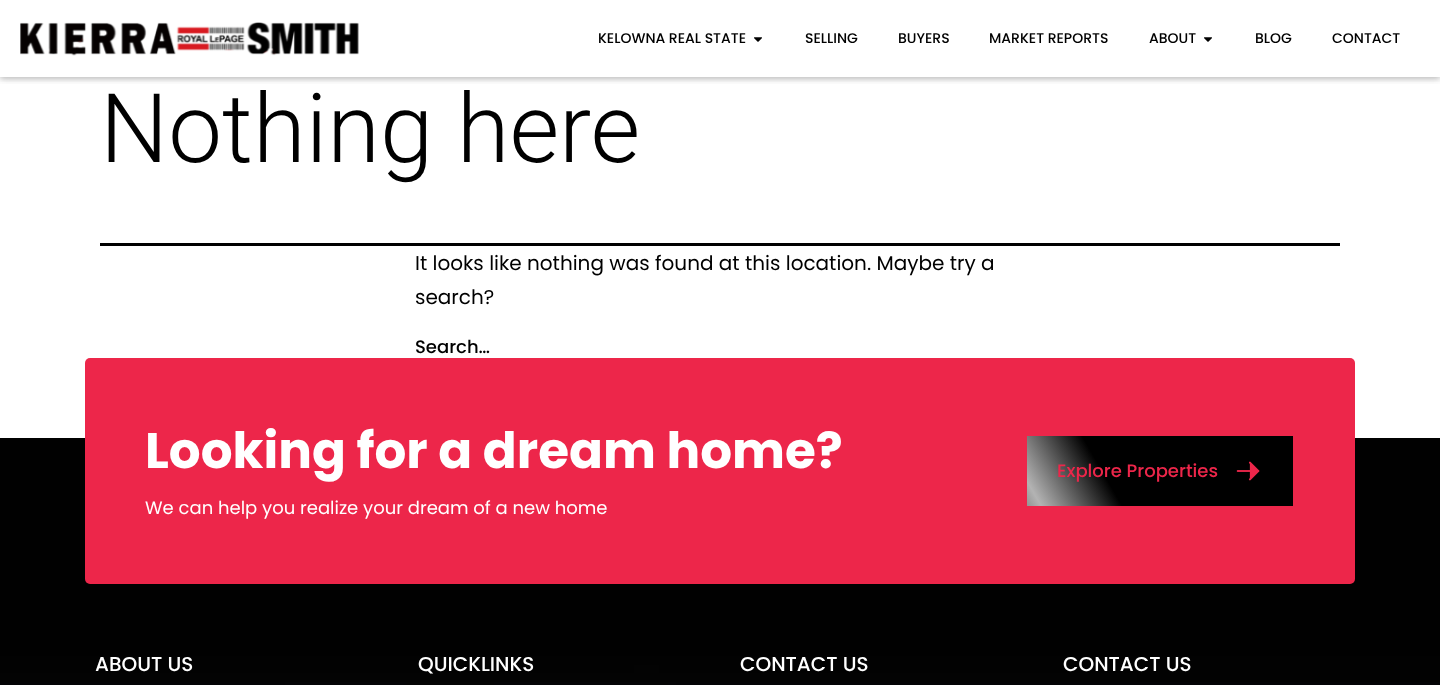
(async () => {
  const canvas = document.querySelector("canvas");
  canvas.width = 1440;
  canvas.height = 685;
  const ctx = canvas.getContext("2d");
  ctx.miterLimit = 4;
  ctx.fontKerning = "normal";
  async function loadImage(src) {
    const img = new Image();
    img.src = src;
    await img.decode();
    return img;
  }
  let gradient, path;

  ctx.fillStyle = "#ffffff";
  ctx.fillRect(0, 0, 1440, 685);
  ctx.save();
  ctx.beginPath();
  ctx.rect(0, 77, 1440, 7);
  ctx.clip();
  ctx.fillStyle = "rgba(0, 0, 0, 0.12)";
  ctx.filter = "blur(5px)";
  ctx.beginPath();
  ctx.rect(0, 2, 1440, 77);
  ctx.fill();
  ctx.filter = "none";
  ctx.restore();
  ctx.save();
  ctx.beginPath();
  ctx.rect(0, 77, 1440, 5);
  ctx.clip();
  ctx.fillStyle = "rgba(0, 0, 0, 0.16)";
  ctx.filter = "blur(2.5px)";
  ctx.beginPath();
  ctx.rect(0, 2, 1440, 77);
  ctx.fill();
  ctx.filter = "none";
  ctx.restore();
  ctx.drawImage(await loadImage("img/1.png"), 20, 22, 339, 34);
  ctx.drawImage(await loadImage("img/2.png"), 754, 37, 8, 5);
  ctx.drawImage(await loadImage("img/2.png"), 1204, 37, 8, 5);
  ctx.fillStyle = "#000000";
  ctx.fillRect(100, 243, 1240, 3);
  ctx.drawImage(await loadImage("img/3.png"), 0, 438, 1440, 247);
  ctx.fillStyle = "#ed264a";
  ctx.beginPath();
  ctx.roundRect(85, 358, 1270, 226, 5);
  ctx.fill();
  ctx.fillStyle = "#000000";
  ctx.fillRect(1082, 436, 211, 70);
  ctx.save();
  ctx.beginPath();
  ctx.rect(1027, 436, 266, 70);
  ctx.clip();
  gradient = ctx.createLinearGradient(1077, 427, 955, 497);
  gradient.addColorStop(0, "#000000");
  gradient.addColorStop(0.5, "#b3b3b3");
  gradient.addColorStop(1, "#000000");
  ctx.fillStyle = gradient;
  path = new Path2D("M944 196L1210 657L1088 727L822 266Z");
  ctx.fill(path);
  ctx.restore();
  ctx.drawImage(await loadImage("img/4.png"), 1236, 461, 24, 20);
  ctx.font = "500 14px Poppins";
  for (const [text, x, y] of [
    ["KELOWNA REAL STATE", 598, 43],
    ["SELLING", 805, 43],
    ["BUYERS", 898, 43],
    ["MARKET REPORTS", 989, 43],
    ["ABOUT", 1149, 43],
    ["BLOG", 1255, 43],
    ["CONTACT", 1332, 43],
  ]) {
    ctx.fillText(text, x, y);
  }
  ctx.font = "300 96px Roboto";
  ctx.fillText("Nothing here", 100, 162);
  ctx.font = "20px Poppins";
  ctx.fillText("It looks like nothing was found at this location. Maybe try a", 415, 270);
  ctx.fillText("search?", 415, 304);
  ctx.font = "500 18px Poppins";
  ctx.fillText("Search…", 415, 353);
  ctx.font = "bold 50px Poppins";
  ctx.fillStyle = "#ffffff";
  ctx.fillText("Looking for a dream home?", 145, 468);
  ctx.font = "18px Poppins";
  ctx.fillText("We can help you realize your dream of a new home", 145, 514);
  ctx.font = "500 18px Poppins";
  ctx.fillStyle = "#ed264a";
  ctx.fillText("Explore Properties", 1057, 477);
  ctx.font = "500 20px Poppins";
  ctx.fillStyle = "#ffffff";
  for (const [text, x, y] of [
    ["ABOUT US", 95, 671],
    ["QUICKLINKS", 418, 671],
    ["CONTACT US", 740, 671],
    ["CONTACT US", 1063, 671],
  ]) {
    ctx.fillText(text, x, y);
  }
})();
